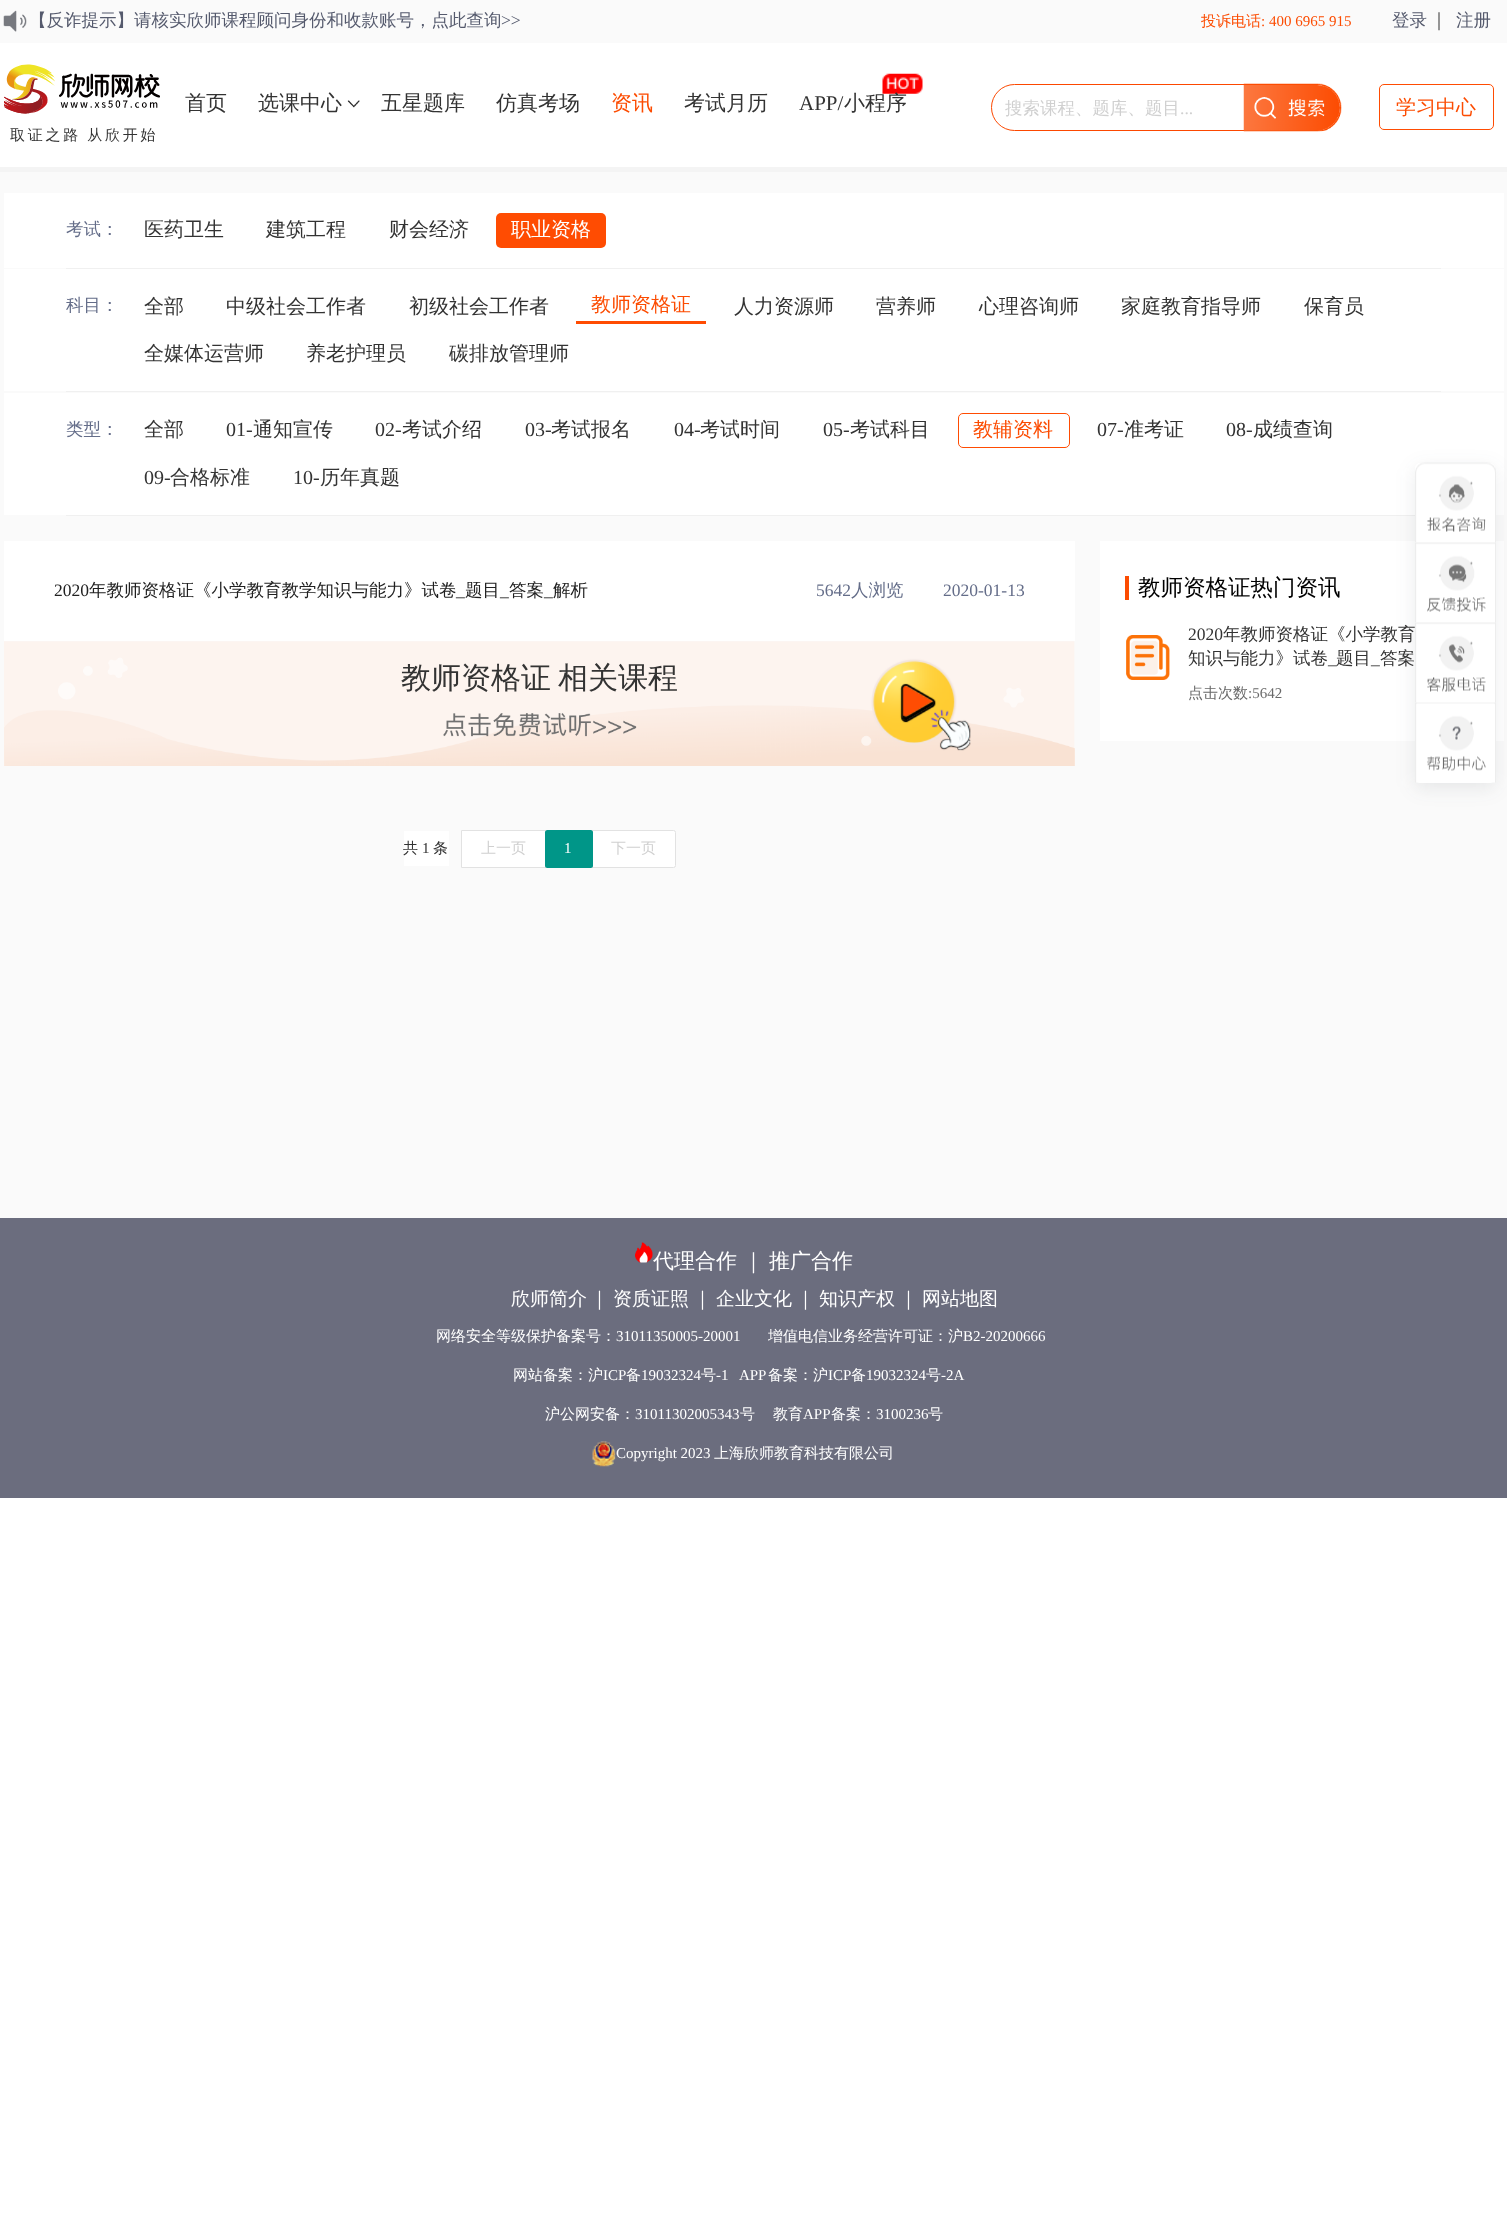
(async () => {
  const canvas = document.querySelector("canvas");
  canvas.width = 1507;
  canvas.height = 2230;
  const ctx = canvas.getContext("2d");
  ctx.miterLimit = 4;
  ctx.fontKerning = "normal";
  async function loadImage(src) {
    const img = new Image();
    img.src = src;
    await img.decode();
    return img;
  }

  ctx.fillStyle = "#ffffff";
  ctx.fillRect(0, 0, 1507, 2230);
  ctx.fillStyle = "#fafafa";
  ctx.fillRect(0, 0, 1507, 43);
  ctx.drawImage(await loadImage("img/1.png"), 3, 10, 24, 22);
  ctx.drawImage(await loadImage("img/2.png"), 347, 100, 13, 8);
  ctx.drawImage(await loadImage("img/3.png"), 882, 73, 41, 21);
  ctx.beginPath();
  ctx.roundRect(991.5, 84.5, 327, 46, 23);
  ctx.strokeStyle = "#fc4800";
  ctx.stroke();
  ctx.drawImage(await loadImage("img/4.png"), 1243, 83, 99, 49);
  ctx.beginPath();
  ctx.roundRect(1379.5, 84.5, 114, 45, 4.5);
  ctx.strokeStyle = "#ff4c02";
  ctx.stroke();
  ctx.drawImage(await loadImage("img/5.png"), 4, 64, 156, 50);
  for (const [x, y, w, h, color] of [
    [0, 172, 1507, 1046, "#fafafa"],
    [0, 167, 1507, 5, "#f4f4f4"],
    [4, 193, 1500, 75, "#ffffff"],
  ]) {
    ctx.fillStyle = color;
    ctx.fillRect(x, y, w, h);
  }
  ctx.fillStyle = "#ff4c02";
  ctx.beginPath();
  ctx.roundRect(496, 213, 110, 35, 5);
  ctx.fill();
  for (const [x, y, w, h, color] of [
    [66, 268, 1375, 1, "#f0f0f0"],
    [4, 269, 1500, 122, "#ffffff"],
    [576, 321, 130, 3, "#ff4c02"],
    [66, 391, 1375, 1, "#f0f0f0"],
    [4, 393, 1500, 122, "#ffffff"],
  ]) {
    ctx.fillStyle = color;
    ctx.fillRect(x, y, w, h);
  }
  ctx.beginPath();
  ctx.roundRect(958.5, 413.5, 111, 34, 4.5);
  ctx.stroke();
  ctx.fillStyle = "#f0f0f0";
  ctx.fillRect(66, 515, 1349, 1);
  ctx.fillStyle = "#ffffff";
  ctx.fillRect(4, 541, 1071, 100);
  ctx.drawImage(await loadImage("img/6.png"), 4, 641, 1071, 125);
  ctx.fillRect(404, 831, 45, 35);
  ctx.beginPath();
  ctx.rect(461.5, 830.5, 84, 37);
  ctx.fill();
  ctx.strokeStyle = "#e2e2e2";
  ctx.stroke();
  ctx.beginPath();
  ctx.roundRect(591.5, 830.5, 84, 37, [0, 2, 2, 0]);
  ctx.fill();
  ctx.stroke();
  ctx.strokeRect(545.5, 830.5, 47, 37);
  ctx.fillStyle = "#009688";
  ctx.beginPath();
  ctx.roundRect(545, 830, 48, 38, 2.5);
  ctx.fill();
  ctx.fillStyle = "#ffffff";
  ctx.fillRect(1100, 541, 404, 200);
  ctx.fillStyle = "#fc4c02";
  ctx.fillRect(1125, 576, 4, 24);
  ctx.drawImage(await loadImage("img/7.png"), 1126, 635, 44, 45);
  ctx.fillStyle = "rgba(52, 60, 69, 0.1)";
  ctx.filter = "blur(9.5px)";
  ctx.beginPath();
  ctx.roundRect(1415, 468, 80, 320, 5);
  ctx.fill();
  ctx.filter = "none";
  ctx.fillStyle = "#ffffff";
  ctx.beginPath();
  ctx.roundRect(1415, 463, 80, 320, 5);
  ctx.fill();
  ctx.drawImage(await loadImage("img/8.png"), 1415, 462, 81, 81);
  ctx.drawImage(await loadImage("img/9.png"), 1415, 542, 81, 81);
  ctx.drawImage(await loadImage("img/10.png"), 1415, 622, 81, 81);
  ctx.drawImage(await loadImage("img/11.png"), 1415, 702, 81, 81);
  ctx.fillStyle = "#6b6d7e";
  ctx.fillRect(0, 1218, 1507, 280);
  ctx.drawImage(await loadImage("img/12.png"), 635, 1242, 18, 21);
  ctx.drawImage(await loadImage("img/13.png"), 592, 1441, 24, 26);
  ctx.font = "500 17.5px WenQuanYi Zen Hei";
  ctx.fillStyle = "#555a6d";
  ctx.fillText("【反诈提示】请核实欣师课程顾问身份和收款账号，点此查询", 29, 26);
  ctx.font = "17.5px Liberation Serif";
  ctx.fillText(">>", 501, 26);
  ctx.font = "500 15px WenQuanYi Zen Hei";
  ctx.fillStyle = "#fc4c02";
  ctx.fillText("投诉电话", 1201, 26);
  ctx.font = "15px Liberation Serif";
  ctx.fillText(": 400 6965 915", 1261, 26);
  ctx.font = "500 17.5px WenQuanYi Zen Hei";
  ctx.fillStyle = "#555a6d";
  ctx.fillText("登录", 1392, 26);
  ctx.font = "20px Liberation Serif";
  ctx.fillStyle = "#333333";
  ctx.fillText("|", 1437, 26);
  ctx.font = "500 17.5px WenQuanYi Zen Hei";
  ctx.fillStyle = "#555a6d";
  ctx.fillText("注册", 1456, 26);
  ctx.font = "500 21px WenQuanYi Zen Hei";
  ctx.fillStyle = "#333333";
  for (const [text, x, y] of [
    ["首页", 185, 110],
    ["选课中心", 258, 110],
    ["五星题库", 381, 110],
    ["仿真考场", 496, 110],
  ]) {
    ctx.fillText(text, x, y);
  }
  ctx.fillStyle = "#fc4c02";
  ctx.fillText("资讯", 611, 110);
  ctx.fillStyle = "#333333";
  ctx.fillText("考试月历", 684, 110);
  ctx.font = "21px Liberation Serif";
  ctx.fillText("APP/", 799, 110);
  ctx.font = "500 21px WenQuanYi Zen Hei";
  ctx.fillText("小程序", 844, 110);
  ctx.font = "500 17.5px WenQuanYi Zen Hei";
  ctx.fillStyle = "#d0d0d0";
  ctx.fillText("搜索课程、题库、题目", 1005, 114);
  ctx.font = "17.5px Liberation Serif";
  ctx.fillText("...", 1180, 114);
  ctx.font = "500 20px WenQuanYi Zen Hei";
  ctx.fillStyle = "#fc4c02";
  ctx.fillText("学习中心", 1396, 114);
  ctx.letterSpacing = "2.75px";
  ctx.wordSpacing = "-1px";
  ctx.font = "500 15px WenQuanYi Zen Hei";
  ctx.fillStyle = "#333333";
  ctx.fillText("取证之路 从欣开始", 10, 140);
  ctx.letterSpacing = "0px";
  ctx.wordSpacing = "0px";
  ctx.font = "500 17.5px WenQuanYi Zen Hei";
  ctx.fillStyle = "#646d89";
  ctx.fillText("考试：", 66, 235);
  ctx.font = "500 20px WenQuanYi Zen Hei";
  ctx.fillStyle = "#333333";
  for (const [text, x, y] of [
    ["医药卫生", 144, 236],
    ["建筑工程", 266, 236],
    ["财会经济", 389, 236],
  ]) {
    ctx.fillText(text, x, y);
  }
  ctx.fillStyle = "#ffffff";
  ctx.fillText("职业资格", 511, 236);
  ctx.font = "500 17.5px WenQuanYi Zen Hei";
  ctx.fillStyle = "#646d89";
  ctx.fillText("科目：", 66, 311);
  ctx.font = "500 20px WenQuanYi Zen Hei";
  ctx.fillStyle = "#333333";
  for (const [text, x, y] of [
    ["全部", 144, 313],
    ["中级社会工作者", 226, 313],
    ["初级社会工作者", 409, 313],
  ]) {
    ctx.fillText(text, x, y);
  }
  ctx.fillStyle = "#fc4c02";
  ctx.fillText("教师资格证", 591, 311);
  ctx.fillStyle = "#333333";
  for (const [text, x, y] of [
    ["人力资源师", 734, 313],
    ["营养师", 876, 313],
    ["心理咨询师", 979, 313],
    ["家庭教育指导师", 1121, 313],
    ["保育员", 1304, 313],
    ["全媒体运营师", 144, 360],
    ["养老护理员", 306, 360],
    ["碳排放管理师", 449, 360],
  ]) {
    ctx.fillText(text, x, y);
  }
  ctx.font = "500 17.5px WenQuanYi Zen Hei";
  ctx.fillStyle = "#646d89";
  ctx.fillText("类型：", 66, 435);
  ctx.font = "500 20px WenQuanYi Zen Hei";
  ctx.fillStyle = "#333333";
  ctx.fillText("全部", 144, 436);
  ctx.font = "20px Liberation Serif";
  ctx.fillText("01-", 226, 436);
  ctx.font = "500 20px WenQuanYi Zen Hei";
  ctx.fillText("通知宣传", 253, 436);
  ctx.font = "20px Liberation Serif";
  ctx.fillText("02-", 375, 436);
  ctx.font = "500 20px WenQuanYi Zen Hei";
  ctx.fillText("考试介绍", 402, 436);
  ctx.font = "20px Liberation Serif";
  ctx.fillText("03-", 525, 436);
  ctx.font = "500 20px WenQuanYi Zen Hei";
  ctx.fillText("考试报名", 551, 436);
  ctx.font = "20px Liberation Serif";
  ctx.fillText("04-", 674, 436);
  ctx.font = "500 20px WenQuanYi Zen Hei";
  ctx.fillText("考试时间", 700, 436);
  ctx.font = "20px Liberation Serif";
  ctx.fillText("05-", 823, 436);
  ctx.font = "500 20px WenQuanYi Zen Hei";
  ctx.fillText("考试科目", 850, 436);
  ctx.fillStyle = "#fc4c02";
  ctx.fillText("教辅资料", 973, 436);
  ctx.font = "20px Liberation Serif";
  ctx.fillStyle = "#333333";
  ctx.fillText("07-", 1097, 436);
  ctx.font = "500 20px WenQuanYi Zen Hei";
  ctx.fillText("准考证", 1124, 436);
  ctx.font = "20px Liberation Serif";
  ctx.fillText("08-", 1226, 436);
  ctx.font = "500 20px WenQuanYi Zen Hei";
  ctx.fillText("成绩查询", 1253, 436);
  ctx.font = "20px Liberation Serif";
  ctx.fillText("09-", 144, 484);
  ctx.font = "500 20px WenQuanYi Zen Hei";
  ctx.fillText("合格标准", 170, 484);
  ctx.font = "20px Liberation Serif";
  ctx.fillText("10-", 293, 484);
  ctx.font = "500 20px WenQuanYi Zen Hei";
  ctx.fillText("历年真题", 320, 484);
  ctx.font = "17.5px Liberation Serif";
  ctx.fillStyle = "#212121";
  ctx.fillText("2020", 54, 596);
  ctx.font = "500 17.5px WenQuanYi Zen Hei";
  ctx.fillText("年教师资格证《小学教育教学知识与能力》试卷", 89, 596);
  ctx.fillText("答案", 509, 596);
  ctx.font = "17.5px Liberation Serif";
  ctx.fillText("_", 456, 596);
  ctx.font = "500 17.5px WenQuanYi Zen Hei";
  ctx.fillText("题目", 465, 596);
  ctx.font = "17.5px Liberation Serif";
  ctx.fillText("_", 500, 596);
  ctx.fillText("_", 544, 596);
  ctx.font = "500 17.5px WenQuanYi Zen Hei";
  ctx.fillText("解析", 553, 596);
  ctx.font = "17.5px Liberation Serif";
  ctx.fillStyle = "#646d89";
  ctx.fillText("5642", 816, 596);
  ctx.font = "500 17.5px WenQuanYi Zen Hei";
  ctx.fillText("人浏览", 851, 596);
  ctx.font = "17.5px Liberation Serif";
  ctx.fillText("2020-01-13", 943, 596);
  ctx.font = "500 30px WenQuanYi Zen Hei";
  ctx.fillStyle = "#333333";
  ctx.fillText("教师资格证", 401, 688);
  ctx.fillText("相关课程", 558, 688);
  ctx.font = "500 15px WenQuanYi Zen Hei";
  ctx.fillText("共", 403, 853);
  ctx.font = "15px Liberation Serif";
  ctx.fillText("1", 422, 853);
  ctx.font = "500 15px WenQuanYi Zen Hei";
  ctx.fillText("条", 433, 853);
  ctx.fillStyle = "#d0d0d0";
  ctx.fillText("上一页", 481, 853);
  ctx.font = "15px Liberation Serif";
  ctx.fillStyle = "#ffffff";
  ctx.fillText("1", 564, 853);
  ctx.font = "500 15px WenQuanYi Zen Hei";
  ctx.fillStyle = "#d0d0d0";
  ctx.fillText("下一页", 611, 853);
  ctx.font = "500 22.5px WenQuanYi Zen Hei";
  ctx.fillStyle = "#000000";
  ctx.fillText("教师资格证热门资讯", 1138, 595);
  ctx.font = "17.5px Liberation Serif";
  ctx.fillStyle = "#333333";
  ctx.fillText("2020", 1188, 640);
  ctx.font = "500 17.5px WenQuanYi Zen Hei";
  ctx.fillText("年教师资格证《小学教育", 1223, 640);
  ctx.fillText("知识与能力》试卷", 1188, 664);
  ctx.font = "17.5px Liberation Serif";
  ctx.fillText("_", 1328, 664);
  ctx.font = "500 17.5px WenQuanYi Zen Hei";
  ctx.fillText("题目", 1336, 664);
  ctx.font = "17.5px Liberation Serif";
  ctx.fillText("_", 1371, 664);
  ctx.font = "500 17.5px WenQuanYi Zen Hei";
  ctx.fillText("答案", 1380, 664);
  ctx.font = "500 15px WenQuanYi Zen Hei";
  ctx.fillStyle = "#696969";
  ctx.fillText("点击次数", 1188, 698);
  ctx.font = "15px Liberation Serif";
  ctx.fillText(":5642", 1248, 698);
  ctx.font = "500 21px WenQuanYi Zen Hei";
  ctx.fillStyle = "#ffffff";
  for (const [text, x, y] of [
    ["代理合作", 653, 1268],
    ["｜", 743, 1268],
    ["推广合作", 769, 1268],
  ]) {
    ctx.fillText(text, x, y);
  }
  ctx.font = "500 19px WenQuanYi Zen Hei";
  for (const [text, x, y] of [
    ["欣师简介", 511, 1305],
    ["｜", 590, 1305],
    ["资质证照", 613, 1305],
    ["｜", 693, 1305],
    ["企业文化", 716, 1305],
    ["｜", 796, 1305],
    ["知识产权", 819, 1305],
    ["｜", 899, 1305],
    ["网站地图", 922, 1305],
  ]) {
    ctx.fillText(text, x, y);
  }
  ctx.font = "500 15px WenQuanYi Zen Hei";
  ctx.fillText("网络安全等级保护备案号：", 436, 1341);
  ctx.font = "15px Liberation Serif";
  ctx.fillText("31011350005-20001", 616, 1341);
  ctx.font = "500 15px WenQuanYi Zen Hei";
  ctx.fillText("增值电信业务经营许可证：沪", 768, 1341);
  ctx.font = "15px Liberation Serif";
  ctx.fillText("B2-20200666", 963, 1341);
  ctx.font = "500 15px WenQuanYi Zen Hei";
  ctx.fillText("网站备案：沪", 513, 1380);
  ctx.font = "15px Liberation Serif";
  ctx.fillText("ICP", 603, 1380);
  ctx.font = "500 15px WenQuanYi Zen Hei";
  ctx.fillText("备", 626, 1380);
  ctx.font = "15px Liberation Serif";
  ctx.fillText("19032324", 641, 1380);
  ctx.font = "500 15px WenQuanYi Zen Hei";
  ctx.fillText("号", 701, 1380);
  ctx.font = "15px Liberation Serif";
  ctx.fillText("-1   APP", 716, 1380);
  ctx.font = "500 15px WenQuanYi Zen Hei";
  ctx.fillText("备案：沪", 768, 1380);
  ctx.font = "15px Liberation Serif";
  ctx.fillText("ICP", 828, 1380);
  ctx.font = "500 15px WenQuanYi Zen Hei";
  ctx.fillText("备", 851, 1380);
  ctx.font = "15px Liberation Serif";
  ctx.fillText("19032324", 866, 1380);
  ctx.font = "500 15px WenQuanYi Zen Hei";
  ctx.fillText("号", 926, 1380);
  ctx.font = "15px Liberation Serif";
  ctx.fillText("-2A", 941, 1380);
  ctx.font = "500 15px WenQuanYi Zen Hei";
  ctx.fillText("沪公网安备：", 545, 1419);
  ctx.font = "15px Liberation Serif";
  ctx.fillText("31011302005343", 635, 1419);
  ctx.font = "500 15px WenQuanYi Zen Hei";
  ctx.fillText("号", 740, 1419);
  ctx.fillText("教育", 773, 1419);
  ctx.font = "15px Liberation Serif";
  ctx.fillText("APP", 803, 1419);
  ctx.font = "500 15px WenQuanYi Zen Hei";
  ctx.fillText("备案：", 831, 1419);
  ctx.font = "15px Liberation Serif";
  ctx.fillText("3100236", 876, 1419);
  ctx.font = "500 15px WenQuanYi Zen Hei";
  ctx.fillText("号", 928, 1419);
  ctx.font = "15px Liberation Serif";
  ctx.fillText("Copyright 2023", 616, 1458);
  ctx.font = "500 15px WenQuanYi Zen Hei";
  ctx.fillText("上海欣师教育科技有限公司", 714, 1458);
})();
